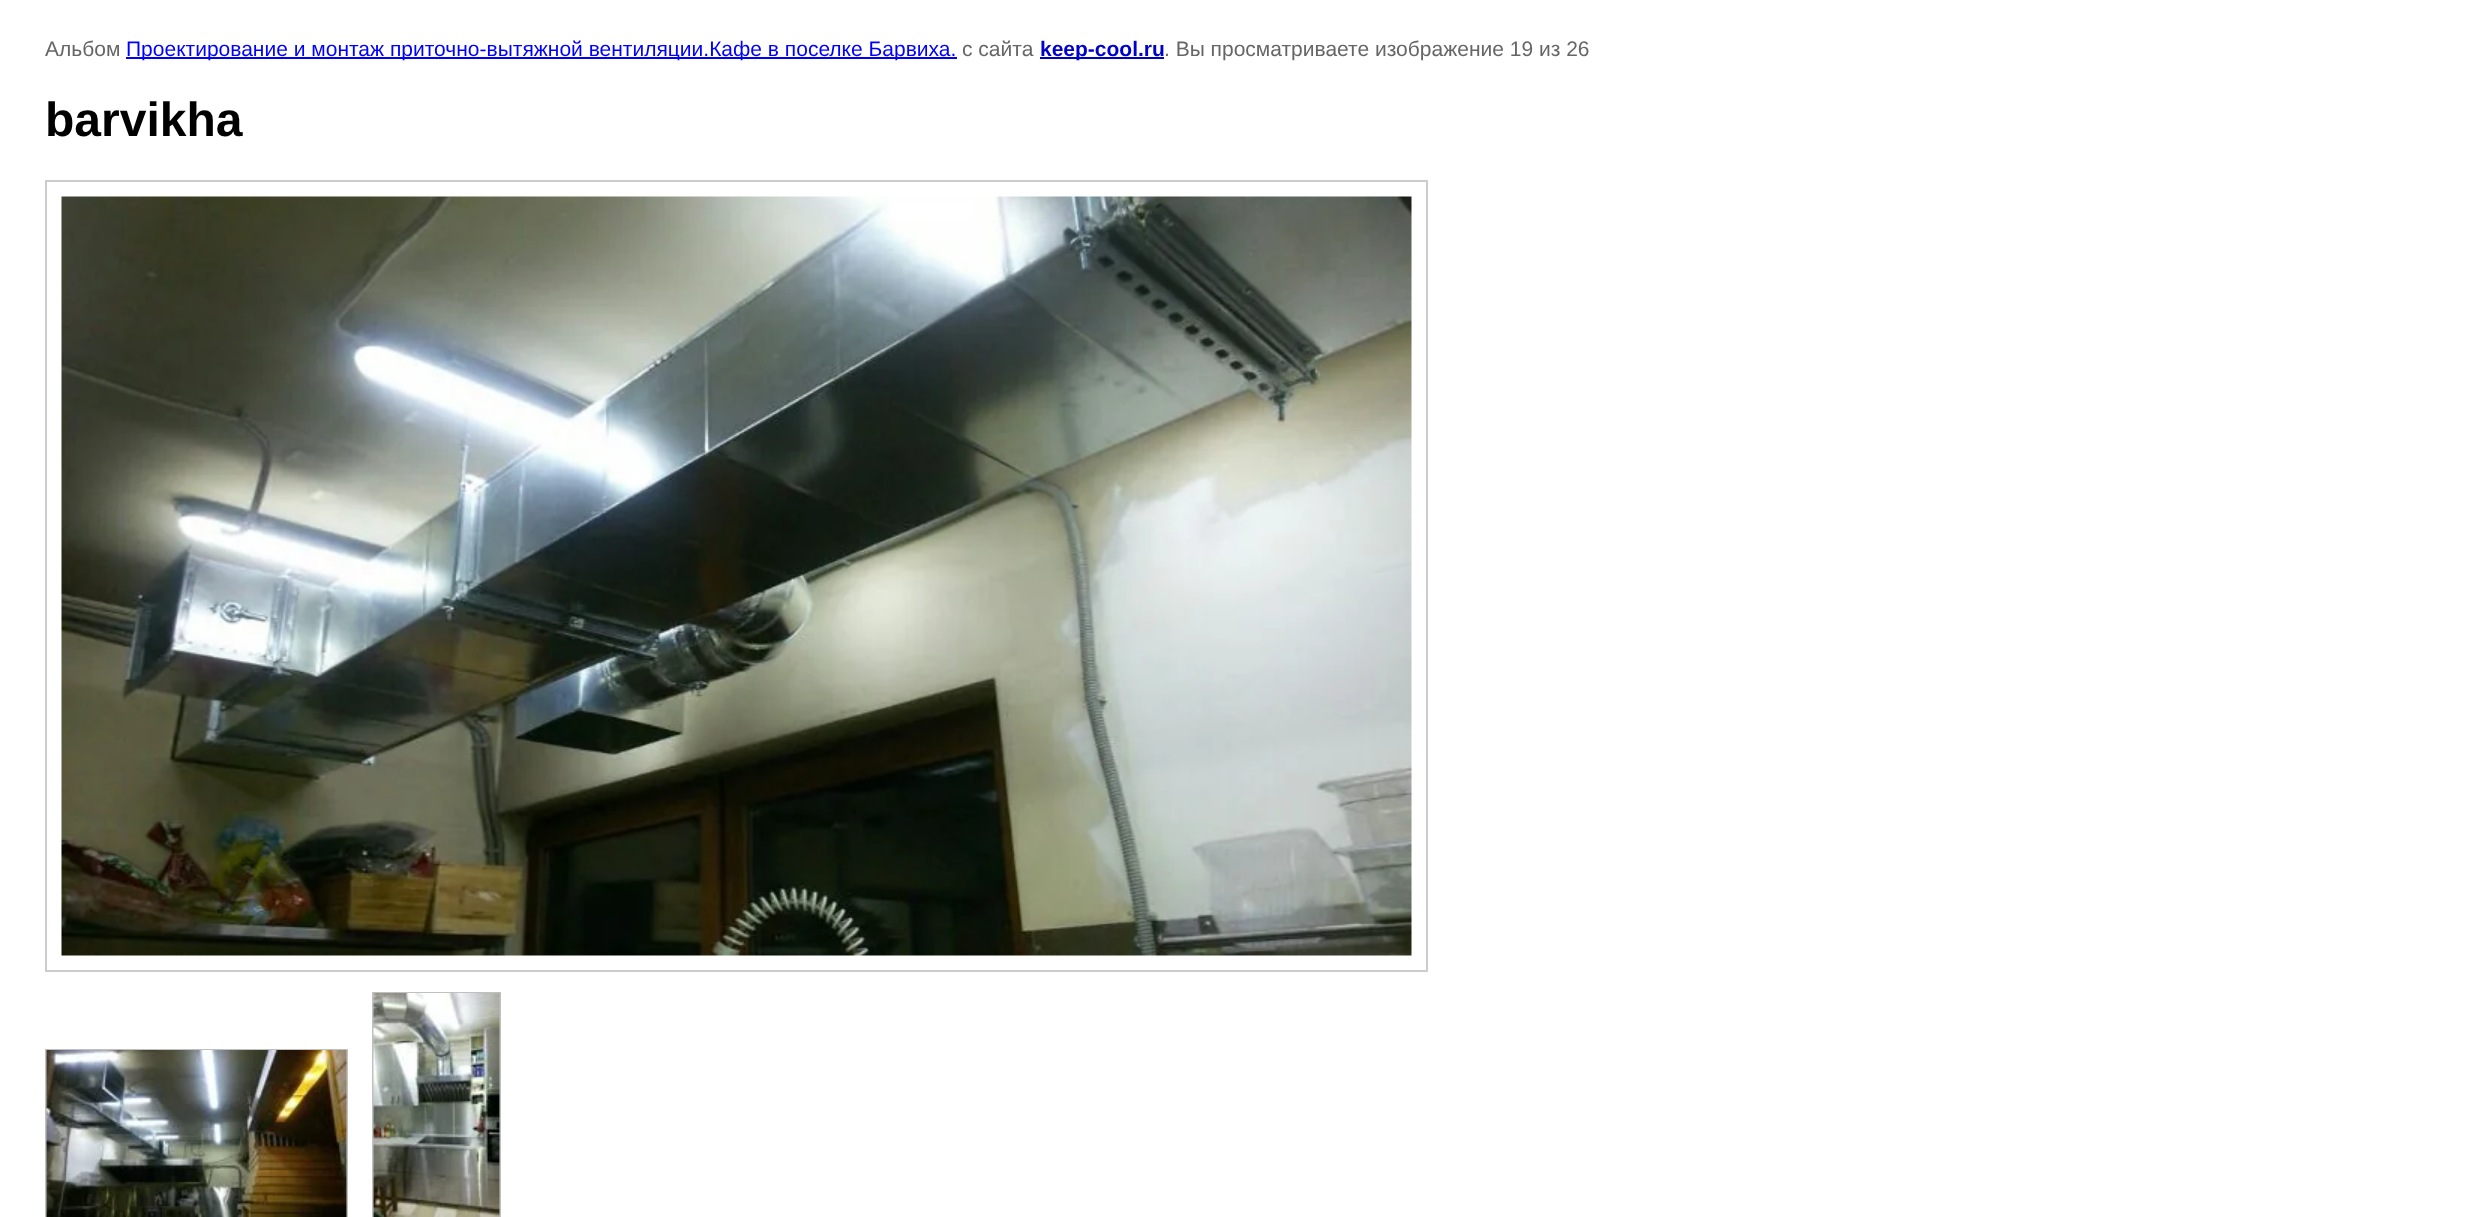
(async () => {
  const canvas = document.querySelector("canvas");
  canvas.width = 2479;
  canvas.height = 1217;
  const ctx = canvas.getContext("2d");
  ctx.miterLimit = 4;
  ctx.fontKerning = "normal";
  async function loadImage(src) {
    const img = new Image();
    img.src = src;
    await img.decode();
    return img;
  }

  ctx.fillStyle = "#ffffff";
  ctx.fillRect(0, 0, 2479, 1217);
  ctx.fillStyle = "#0000ff";
  ctx.fillRect(126, 57, 831, 2);
  ctx.fillStyle = "#0000cc";
  ctx.fillRect(1040, 57, 124, 2);
  ctx.strokeStyle = "#cccccc";
  ctx.lineWidth = 2;
  ctx.strokeRect(46, 181, 1381, 790);
  ctx.drawImage(await loadImage("img/1.png"), 61, 196, 1351, 760);
  ctx.strokeStyle = "#c0c0c0";
  ctx.strokeRect(46, 1050, 301, 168);
  ctx.drawImage(await loadImage("img/2.png"), 46, 1050, 301, 167);
  ctx.strokeRect(373, 993, 127, 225);
  ctx.drawImage(await loadImage("img/3.png"), 373, 993, 127, 224);
  ctx.font = "21px Liberation Sans";
  ctx.fillStyle = "#666666";
  ctx.fillText("Альбом", 45, 56);
  ctx.fillStyle = "#0000ff";
  ctx.fillText("Проектирование и монтаж приточно-вытяжной вентиляции.Кафе в поселке Барвиха.", 126, 56);
  ctx.fillStyle = "#666666";
  ctx.fillText("с сайта", 962, 56);
  ctx.font = "bold 21px Liberation Sans";
  ctx.fillStyle = "#0000cc";
  ctx.fillText("keep-cool.ru", 1040, 56);
  ctx.font = "21px Liberation Sans";
  ctx.fillStyle = "#666666";
  ctx.fillText(". Вы просматриваете изображение 19 из 26", 1164, 56);
  ctx.font = "bold 48px Liberation Sans";
  ctx.fillStyle = "#000000";
  ctx.fillText("barvikha", 45, 136);
})();
